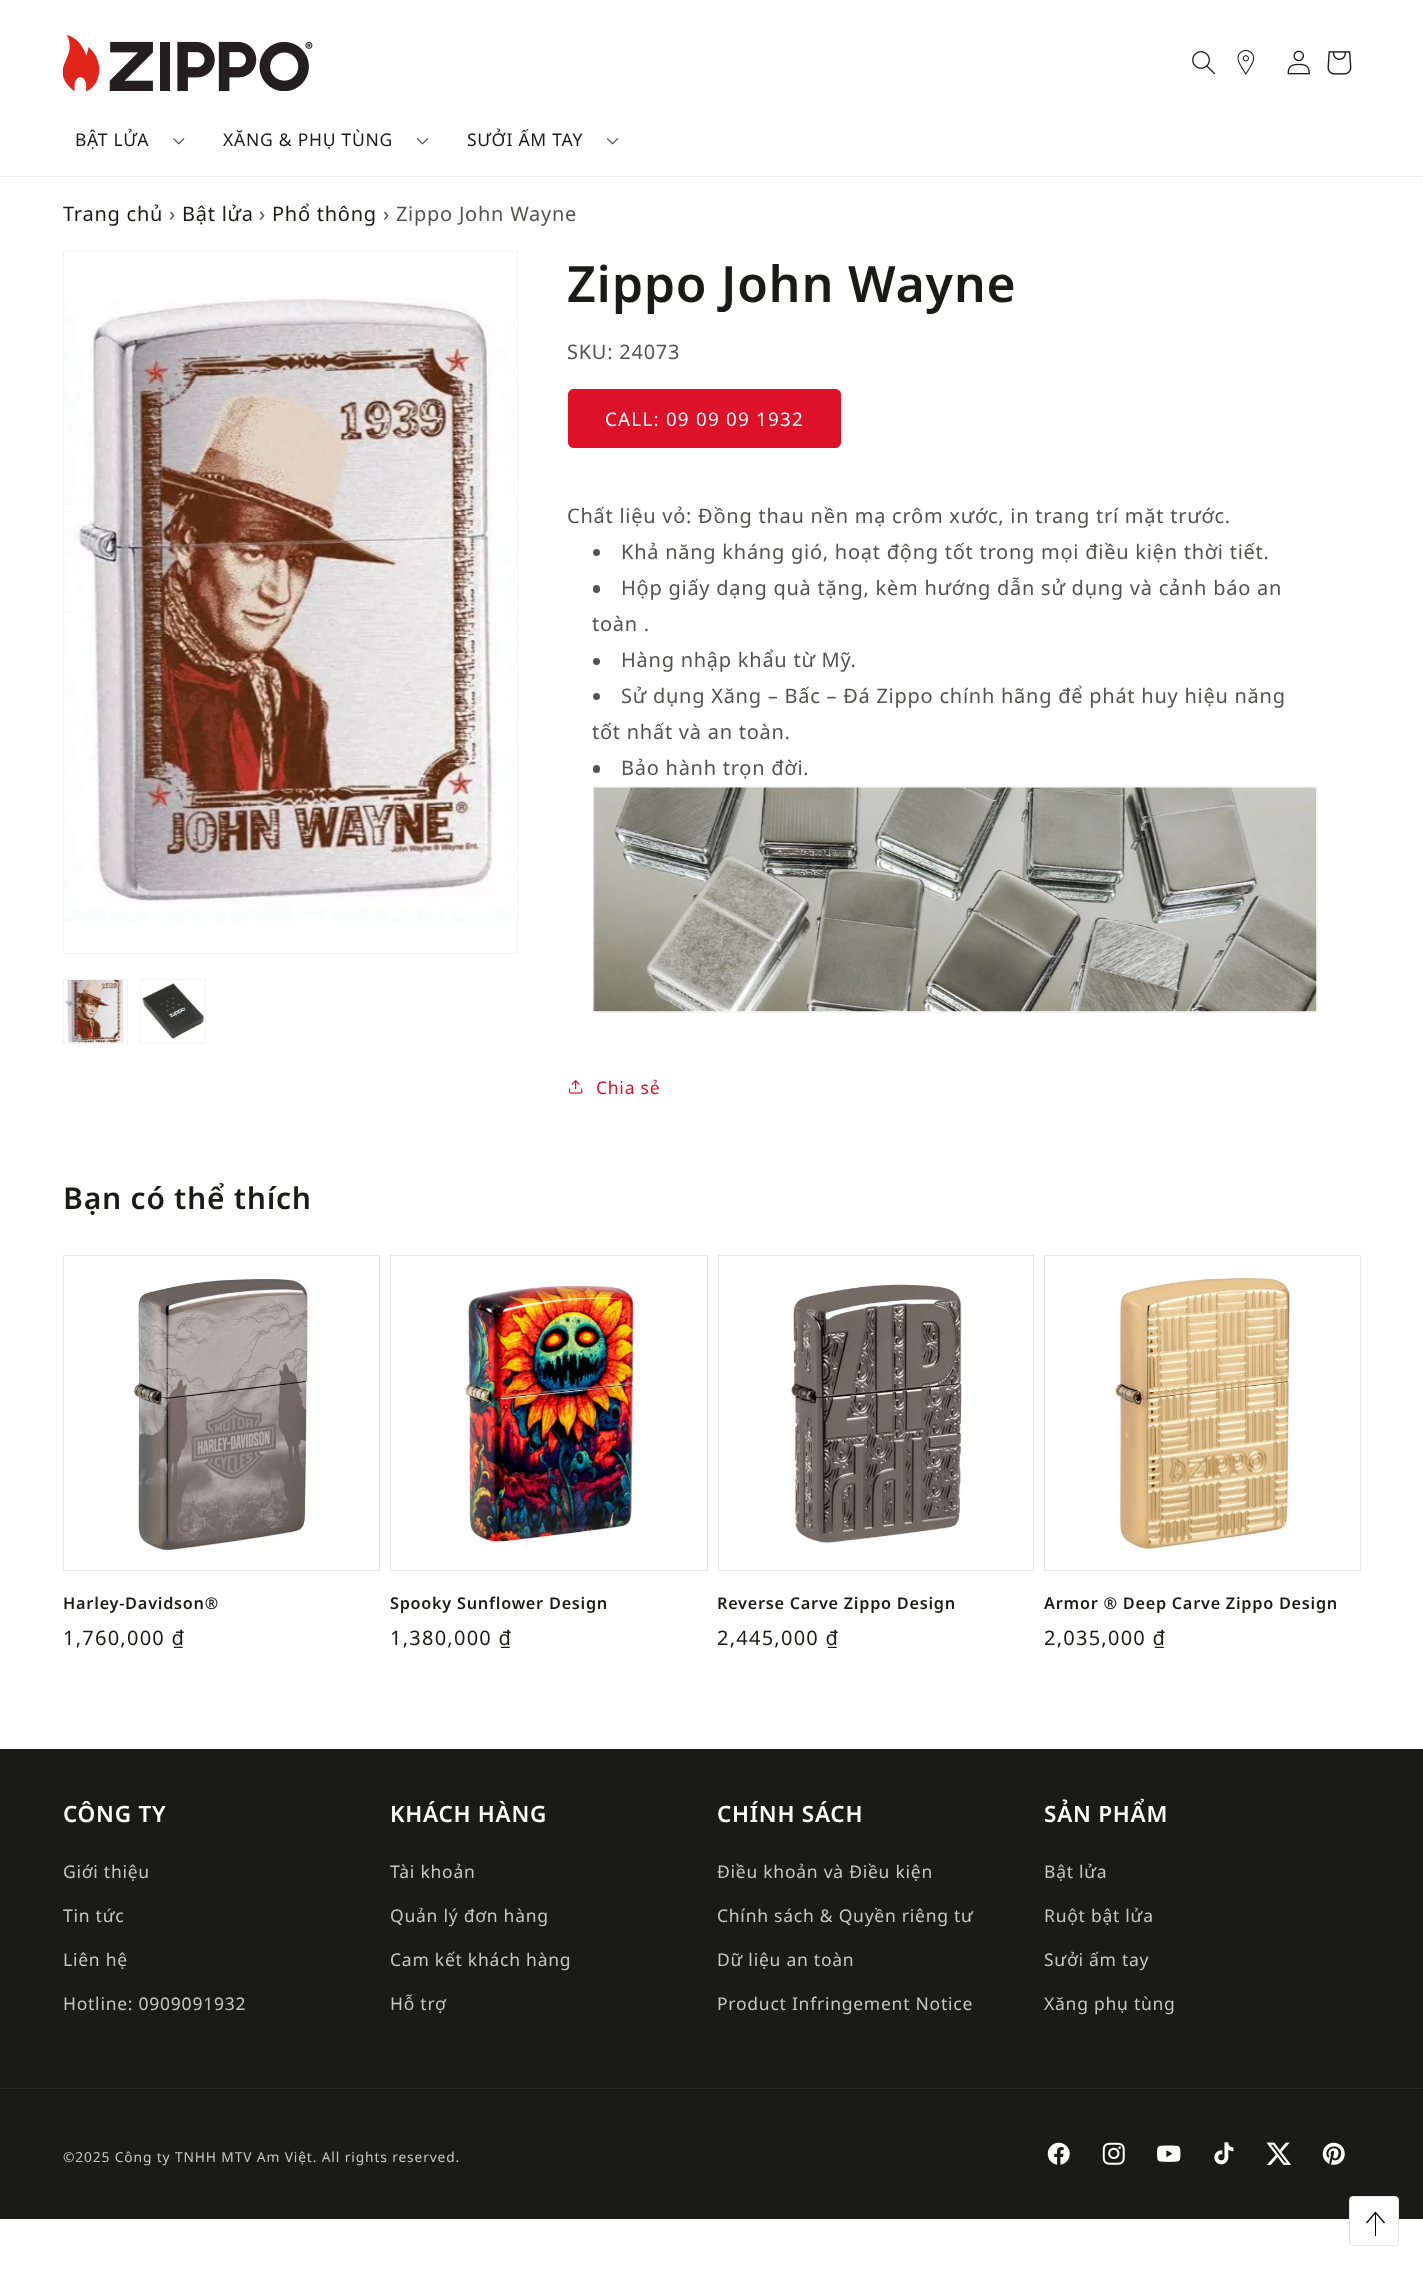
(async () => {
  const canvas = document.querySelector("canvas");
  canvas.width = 1423;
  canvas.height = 2271;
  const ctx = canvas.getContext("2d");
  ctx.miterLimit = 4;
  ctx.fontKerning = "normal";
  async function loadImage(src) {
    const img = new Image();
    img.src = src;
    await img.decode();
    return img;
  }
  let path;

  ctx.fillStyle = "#ffffff";
  ctx.fillRect(0, 0, 1423, 2271);
  ctx.fillStyle = "#ededed";
  ctx.fillRect(0, 176, 1423, 1);
  ctx.drawImage(await loadImage("img/1.png"), 63, 35, 250, 56);
  ctx.drawImage(await loadImage("img/2.png"), 1192, 51, 23, 24);
  ctx.drawImage(await loadImage("img/3.png"), 1237, 50, 18, 25);
  ctx.drawImage(await loadImage("img/4.png"), 1287, 50, 23, 25);
  ctx.drawImage(await loadImage("img/5.png"), 1327, 51, 25, 24);
  ctx.drawImage(await loadImage("img/6.png"), 173, 138, 12, 7);
  ctx.drawImage(await loadImage("img/7.png"), 416, 138, 13, 7);
  ctx.drawImage(await loadImage("img/7.png"), 606, 138, 13, 7);
  ctx.strokeStyle = "#f4f4f3";
  ctx.strokeRect(63.5, 251.5, 454, 702);
  ctx.drawImage(await loadImage("img/8.png"), 64, 298, 451, 624);
  ctx.strokeRect(63.5, 979.5, 64, 64);
  ctx.drawImage(await loadImage("img/9.png"), 64, 980, 62, 63);
  ctx.strokeRect(140.5, 979.5, 65, 64);
  ctx.drawImage(await loadImage("img/10.png"), 142, 983, 62, 56);
  ctx.fillStyle = "#dd1229";
  ctx.beginPath();
  ctx.roundRect(568, 389, 273, 59, 6);
  ctx.fill();
  ctx.beginPath();
  ctx.roundRect(568.5, 389.5, 272, 58, 5.5);
  ctx.strokeStyle = "#dd1229";
  ctx.stroke();
  ctx.fillStyle = "#535452";
  ctx.beginPath();
  ctx.arc(596.5, 552.5, 3.5, 0, Math.PI * 2);
  ctx.fill();
  ctx.beginPath();
  ctx.roundRect(593, 585, 7, 8, 3.5);
  ctx.fill();
  ctx.beginPath();
  ctx.arc(596.5, 661.5, 3.5, 0, Math.PI * 2);
  ctx.fill();
  ctx.beginPath();
  ctx.arc(596.5, 696.5, 3.5, 0, Math.PI * 2);
  ctx.fill();
  ctx.beginPath();
  ctx.roundRect(593, 765, 7, 8, 3.5);
  ctx.fill();
  ctx.strokeStyle = "#f4f4f3";
  ctx.strokeRect(593.5, 786.5, 724, 226);
  ctx.drawImage(await loadImage("img/11.png"), 593, 787, 724, 225);
  ctx.drawImage(await loadImage("img/12.png"), 568, 1080, 15, 14);
  ctx.strokeStyle = "#e8e8e8";
  ctx.strokeRect(63.5, 1255.5, 316, 315);
  ctx.drawImage(await loadImage("img/13.png"), 132, 1278, 178, 273);
  ctx.strokeRect(390.5, 1255.5, 317, 315);
  ctx.drawImage(await loadImage("img/14.png"), 464, 1285, 171, 258);
  ctx.strokeRect(718.5, 1255.5, 315, 315);
  ctx.drawImage(await loadImage("img/15.png"), 791, 1283, 171, 260);
  ctx.strokeRect(1044.5, 1255.5, 316, 315);
  ctx.drawImage(await loadImage("img/16.png"), 1112, 1277, 179, 275);
  ctx.fillStyle = "#1a1b18";
  ctx.fillRect(0, 1749, 1423, 470);
  ctx.fillStyle = "#2c2d2a";
  ctx.fillRect(0, 2088, 1423, 1);
  ctx.drawImage(await loadImage("img/17.png"), 1047, 2142, 23, 23);
  ctx.drawImage(await loadImage("img/18.png"), 1102, 2142, 23, 23);
  ctx.drawImage(await loadImage("img/19.png"), 1157, 2145, 24, 17);
  ctx.drawImage(await loadImage("img/20.png"), 1214, 2142, 20, 23);
  ctx.drawImage(await loadImage("img/21.png"), 1266, 2142, 25, 23);
  ctx.drawImage(await loadImage("img/22.png"), 1322, 2142, 23, 23);
  ctx.fillStyle = "#ffffff";
  ctx.beginPath();
  ctx.roundRect(1349.5, 2196.5, 49, 49, 3.5);
  ctx.fill();
  ctx.strokeStyle = "#e5e5e5";
  ctx.stroke();
  ctx.save();
  ctx.beginPath();
  ctx.rect(1361, 2211, 25, 25);
  ctx.clip();
  ctx.fillStyle = "#000000";
  path = new Path2D("M1375 2214L1367 2223.5L1366 2222.5L1375.5 2211.5L1385 2222.5L1384 2223.5L1376 2214V2241.5H1375Z");
  ctx.fill(path, "evenodd");
  ctx.restore();
  ctx.letterSpacing = "0.75px";
  ctx.font = "17.5px Noto Sans";
  ctx.fillStyle = "#1a1b18";
  for (const [text, x, y] of [
    ["BẬT LỬA", 75, 146],
    ["XĂNG & PHỤ TÙNG", 223, 146],
    ["SƯỞI ẤM TAY", 467, 146],
  ]) {
    ctx.fillText(text, x, y);
  }
  ctx.font = "20px Noto Sans";
  ctx.fillText("Trang chủ", 63, 221);
  ctx.fillStyle = "#535452";
  ctx.fillText("›", 169, 221);
  ctx.fillStyle = "#1a1b18";
  ctx.fillText("Bật lửa", 182, 221);
  ctx.fillStyle = "#535452";
  ctx.fillText("›", 259, 221);
  ctx.fillStyle = "#1a1b18";
  ctx.fillText("Phổ thông", 272, 221);
  ctx.fillStyle = "#535452";
  ctx.fillText("› Zippo John Wayne", 383, 221);
  ctx.font = "600 50px Noto Sans";
  ctx.fillStyle = "#1a1b18";
  ctx.fillText("Zippo John Wayne", 567, 302);
  ctx.font = "20px Noto Sans";
  ctx.fillStyle = "#535452";
  ctx.fillText("SKU: 24073", 567, 359);
  ctx.letterSpacing = "1.25px";
  ctx.font = "18.75px Noto Sans";
  ctx.fillStyle = "#ffffff";
  ctx.fillText("CALL: 09 09 09 1932", 605, 426);
  ctx.letterSpacing = "0.75px";
  ctx.font = "20px Noto Sans";
  ctx.fillStyle = "#535452";
  for (const [text, x, y] of [
    ["Chất liệu vỏ: Đồng thau nền mạ crôm xước, in trang trí mặt trước.", 567, 523],
    ["Khả năng kháng gió, hoạt động tốt trong mọi điều kiện thời tiết.", 621, 559],
    ["Hộp giấy dạng quà tặng, kèm hướng dẫn sử dụng và cảnh báo an", 621, 595],
    ["toàn .", 592, 631],
    ["Hàng nhập khẩu từ Mỹ.", 621, 667],
    ["Sử dụng Xăng – Bấc – Đá Zippo chính hãng để phát huy hiệu năng", 621, 703],
    ["tốt nhất và an toàn.", 592, 739],
    ["Bảo hành trọn đời.", 621, 775],
  ]) {
    ctx.fillText(text, x, y);
  }
  ctx.font = "17.5px Noto Sans";
  ctx.fillStyle = "#dd1229";
  ctx.fillText("Chia sẻ", 596, 1094);
  ctx.font = "600 30px Noto Sans";
  ctx.fillStyle = "#1a1b18";
  ctx.fillText("Bạn có thể thích", 63, 1209);
  ctx.font = "600 16.25px Noto Sans";
  ctx.fillText("Harley-Davidson®", 63, 1609);
  ctx.letterSpacing = "1.25px";
  ctx.font = "20px Noto Sans";
  ctx.fillText("1,760,000 ₫", 63, 1645);
  ctx.letterSpacing = "0.75px";
  ctx.font = "600 16.25px Noto Sans";
  ctx.fillText("Spooky Sunflower Design", 390, 1609);
  ctx.letterSpacing = "1.25px";
  ctx.font = "20px Noto Sans";
  ctx.fillText("1,380,000 ₫", 390, 1645);
  ctx.letterSpacing = "0.75px";
  ctx.font = "600 16.25px Noto Sans";
  ctx.fillText("Reverse Carve Zippo Design", 717, 1609);
  ctx.letterSpacing = "1.25px";
  ctx.font = "20px Noto Sans";
  ctx.fillText("2,445,000 ₫", 717, 1645);
  ctx.letterSpacing = "0.75px";
  ctx.font = "600 16.25px Noto Sans";
  ctx.fillText("Armor ® Deep Carve Zippo Design", 1044, 1609);
  ctx.letterSpacing = "1.25px";
  ctx.font = "20px Noto Sans";
  ctx.fillText("2,035,000 ₫", 1044, 1645);
  ctx.letterSpacing = "0.75px";
  ctx.font = "600 22.5px Noto Sans";
  ctx.fillStyle = "#ffffff";
  ctx.fillText("CÔNG TY", 63, 1822);
  ctx.font = "17.5px Noto Sans";
  ctx.fillStyle = "#c6c6c5";
  for (const [text, x, y] of [
    ["Giới thiệu", 63, 1878],
    ["Tin tức", 63, 1922],
    ["Liên hệ", 63, 1966],
    ["Hotline: 0909091932", 63, 2010],
  ]) {
    ctx.fillText(text, x, y);
  }
  ctx.font = "600 22.5px Noto Sans";
  ctx.fillStyle = "#ffffff";
  ctx.fillText("KHÁCH HÀNG", 390, 1822);
  ctx.font = "17.5px Noto Sans";
  ctx.fillStyle = "#c6c6c5";
  for (const [text, x, y] of [
    ["Tài khoản", 390, 1878],
    ["Quản lý đơn hàng", 390, 1922],
    ["Cam kết khách hàng", 390, 1966],
    ["Hỗ trợ", 390, 2010],
  ]) {
    ctx.fillText(text, x, y);
  }
  ctx.font = "600 22.5px Noto Sans";
  ctx.fillStyle = "#ffffff";
  ctx.fillText("CHÍNH SÁCH", 717, 1822);
  ctx.font = "17.5px Noto Sans";
  ctx.fillStyle = "#c6c6c5";
  for (const [text, x, y] of [
    ["Điều khoản và Điều kiện", 717, 1878],
    ["Chính sách & Quyền riêng tư", 717, 1922],
    ["Dữ liệu an toàn", 717, 1966],
    ["Product Infringement Notice", 717, 2010],
  ]) {
    ctx.fillText(text, x, y);
  }
  ctx.font = "600 22.5px Noto Sans";
  ctx.fillStyle = "#ffffff";
  ctx.fillText("SẢN PHẨM", 1044, 1822);
  ctx.font = "17.5px Noto Sans";
  ctx.fillStyle = "#c6c6c5";
  for (const [text, x, y] of [
    ["Bật lửa", 1044, 1878],
    ["Ruột bật lửa", 1044, 1922],
    ["Sưởi ấm tay", 1044, 1966],
    ["Xăng phụ tùng", 1044, 2010],
  ]) {
    ctx.fillText(text, x, y);
  }
  ctx.letterSpacing = "0.88px";
  ctx.font = "13.75px Noto Sans";
  ctx.fillText("©2025 Công ty TNHH MTV Am Việt. All rights reserved.", 63, 2162);
})();
